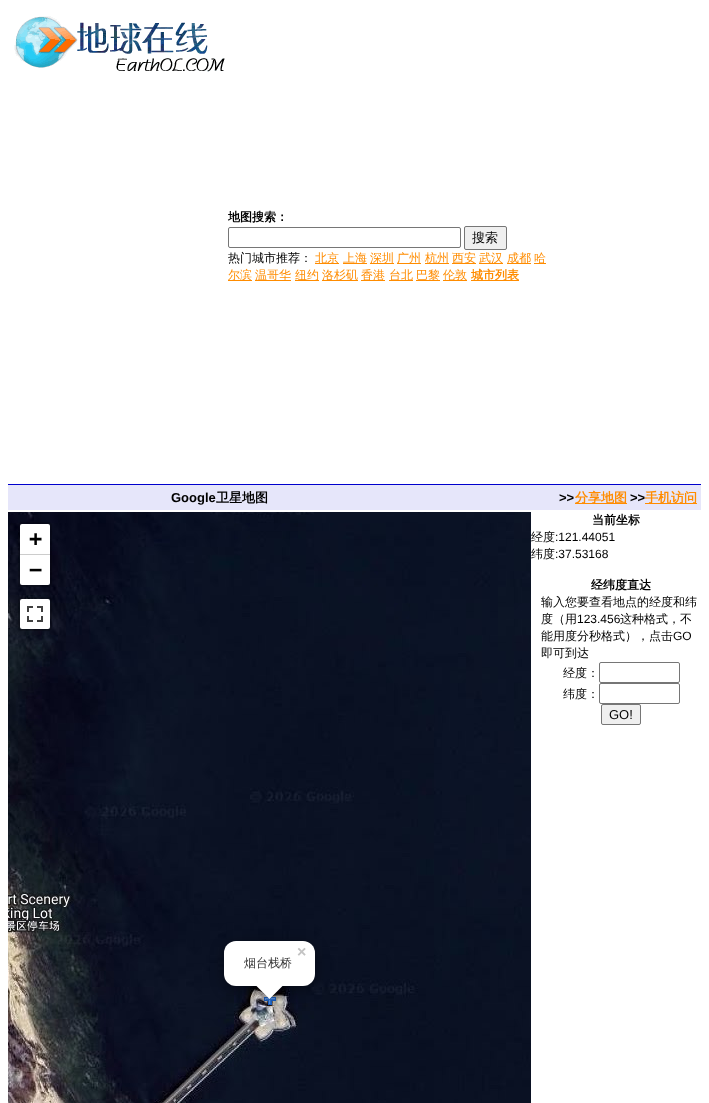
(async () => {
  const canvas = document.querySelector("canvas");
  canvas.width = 709;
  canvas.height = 1103;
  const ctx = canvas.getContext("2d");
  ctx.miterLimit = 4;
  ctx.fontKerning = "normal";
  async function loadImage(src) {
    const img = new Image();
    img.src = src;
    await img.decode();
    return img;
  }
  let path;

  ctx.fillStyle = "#ffffff";
  ctx.fillRect(0, 0, 709, 1103);
  ctx.drawImage(await loadImage("img/1.png"), 14, 16, 211, 56);
  ctx.beginPath();
  ctx.roundRect(228.5, 227.5, 232, 20, 1.5);
  ctx.strokeStyle = "#767676";
  ctx.stroke();
  ctx.fillStyle = "#efefef";
  ctx.beginPath();
  ctx.roundRect(464.5, 226.5, 42, 23, 1.5);
  ctx.fill();
  ctx.stroke();
  for (const [x, y, w, h, color] of [
    [315, 263, 24, 1, "#ff8c00"],
    [343, 263, 24, 1, "#ff8c00"],
    [370, 263, 24, 1, "#ff8c00"],
    [397, 263, 24, 1, "#ff8c00"],
    [425, 263, 24, 1, "#ff8c00"],
    [452, 263, 24, 1, "#ff8c00"],
    [479, 263, 24, 1, "#ff8c00"],
    [507, 263, 24, 1, "#ff8c00"],
    [534, 263, 12, 1, "#ff8c00"],
    [228, 280, 24, 1, "#ff8c00"],
    [255, 280, 36, 1, "#ff8c00"],
    [295, 280, 24, 1, "#ff8c00"],
    [322, 280, 36, 1, "#ff8c00"],
    [361, 280, 24, 1, "#ff8c00"],
    [389, 280, 24, 1, "#ff8c00"],
    [416, 280, 24, 1, "#ff8c00"],
    [443, 280, 24, 1, "#ff8c00"],
    [471, 280, 48, 1, "#ff8c00"],
    [8, 485, 693, 25, "#e6e6fa"],
    [8, 484, 693, 1, "#0000cd"],
    [575, 503, 52, 1, "#ff8c00"],
    [645, 503, 52, 1, "#ff8c00"],
  ]) {
    ctx.fillStyle = color;
    ctx.fillRect(x, y, w, h);
  }
  ctx.drawImage(await loadImage("img/3.png"), 8, 512, 226, 251);
  ctx.beginPath();
  ctx.roundRect(19, 523, 32, 63, 3);
  ctx.strokeStyle = "rgba(0, 0, 0, 0.2)";
  ctx.lineWidth = 2;
  ctx.stroke();
  ctx.fillStyle = "#ffffff";
  ctx.beginPath();
  ctx.roundRect(20, 524, 30, 31, [2, 2, 0, 0]);
  ctx.fill();
  ctx.fillStyle = "#cccccc";
  ctx.fillRect(20, 554, 30, 1);
  ctx.fillStyle = "#ffffff";
  ctx.beginPath();
  ctx.roundRect(20, 555, 30, 30, [0, 0, 2, 2]);
  ctx.fill();
  ctx.beginPath();
  ctx.roundRect(19, 598, 32, 32, 3);
  ctx.stroke();
  ctx.beginPath();
  ctx.roundRect(20, 599, 30, 30, 2);
  ctx.fill();
  ctx.drawImage(await loadImage("img/2.png"), 27, 606, 16, 16);
  ctx.drawImage(await loadImage("img/4.png"), 234, 512, 256, 251);
  ctx.drawImage(await loadImage("img/5.png"), 490, 512, 41, 251);
  ctx.drawImage(await loadImage("img/6.png"), 8, 763, 226, 256);
  ctx.drawImage(await loadImage("img/7.png"), 234, 763, 256, 256);
  ctx.drawImage(await loadImage("img/8.png"), 490, 763, 41, 256);
  ctx.drawImage(await loadImage("img/9.png"), 8, 1019, 226, 84);
  ctx.drawImage(await loadImage("img/10.png"), 234, 1019, 256, 84);
  ctx.drawImage(await loadImage("img/11.png"), 490, 1019, 41, 84);
  ctx.drawImage(await loadImage("img/12.png"), 264, 996, 12, 9);
  ctx.fillStyle = "rgba(0, 0, 0, 0.4)";
  ctx.filter = "blur(7px)";
  ctx.beginPath();
  ctx.roundRect(224, 944, 91, 45, 12);
  ctx.fill();
  ctx.filter = "none";
  ctx.fillStyle = "#ffffff";
  ctx.beginPath();
  ctx.roundRect(224, 941, 91, 45, 12);
  ctx.fill();
  ctx.save();
  ctx.beginPath();
  ctx.rect(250, 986, 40, 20);
  ctx.clip();
  ctx.fillStyle = "rgba(0, 0, 0, 0.4)";
  ctx.filter = "blur(7px)";
  ctx.beginPath();
  ctx.rect(260, 979, 19, 19);
  ctx.fill();
  ctx.filter = "none";
  ctx.restore();
  ctx.save();
  ctx.beginPath();
  ctx.rect(250, 986, 40, 20);
  ctx.clip();
  path = new Path2D("M269.5 972L283 985.5L269.5 999L256 985.5Z");
  ctx.fill(path);
  ctx.restore();
  ctx.beginPath();
  ctx.roundRect(599.5, 662.5, 80, 20, 1.5);
  ctx.strokeStyle = "#767676";
  ctx.lineWidth = 1;
  ctx.stroke();
  ctx.beginPath();
  ctx.roundRect(599.5, 683.5, 80, 20, 1.5);
  ctx.stroke();
  ctx.fillStyle = "#efefef";
  ctx.beginPath();
  ctx.roundRect(601.5, 704.5, 39, 20, 1.5);
  ctx.fill();
  ctx.stroke();
  ctx.font = "bold 12px WenQuanYi Zen Hei";
  ctx.fillStyle = "#000000";
  ctx.fillText("地图搜索：", 228, 221);
  ctx.font = "500 13px WenQuanYi Zen Hei";
  ctx.fillText("搜索", 472, 242);
  ctx.font = "500 12px WenQuanYi Zen Hei";
  ctx.fillText("热门城市推荐：", 228, 262);
  ctx.fillStyle = "#ff8c00";
  for (const [text, x, y] of [
    ["北京", 315, 262],
    ["上海", 343, 262],
    ["深圳", 370, 262],
    ["广州", 397, 262],
    ["杭州", 425, 262],
    ["西安", 452, 262],
    ["武汉", 479, 262],
    ["成都", 507, 262],
    ["哈", 534, 262],
    ["尔滨", 228, 279],
    ["温哥华", 255, 279],
    ["纽约", 295, 279],
    ["洛杉矶", 322, 279],
    ["香港", 361, 279],
    ["台北", 389, 279],
    ["巴黎", 416, 279],
    ["伦敦", 443, 279],
  ]) {
    ctx.fillText(text, x, y);
  }
  ctx.font = "bold 12px WenQuanYi Zen Hei";
  ctx.fillText("城市列表", 471, 279);
  ctx.font = "bold 13px Liberation Sans";
  ctx.fillStyle = "#000000";
  ctx.fillText("Google", 171, 502);
  ctx.font = "bold 13px WenQuanYi Zen Hei";
  ctx.fillText("卫星地图", 216, 502);
  ctx.font = "bold 13px Liberation Sans";
  ctx.fillText(">>", 559, 502);
  ctx.font = "bold 13px WenQuanYi Zen Hei";
  ctx.fillStyle = "#ff8c00";
  ctx.fillText("分享地图", 575, 502);
  ctx.font = "bold 13px Liberation Sans";
  ctx.fillStyle = "#000000";
  ctx.fillText(">>", 630, 502);
  ctx.font = "bold 13px WenQuanYi Zen Hei";
  ctx.fillStyle = "#ff8c00";
  ctx.fillText("手机访问", 645, 502);
  ctx.font = "bold 22px DejaVu Sans Mono";
  ctx.fillStyle = "#000000";
  ctx.fillText("+", 29, 546);
  ctx.fillText("−", 29, 577);
  ctx.font = "bold 16px Liberation Sans";
  ctx.fillStyle = "#c3c3c3";
  ctx.fillText("×", 297, 957);
  ctx.font = "500 12px WenQuanYi Zen Hei";
  ctx.fillStyle = "#333333";
  ctx.fillText("烟台栈桥", 244, 967);
  ctx.font = "bold 12px WenQuanYi Zen Hei";
  ctx.fillStyle = "#000000";
  ctx.fillText("当前坐标", 592, 524);
  ctx.font = "500 12px WenQuanYi Zen Hei";
  ctx.fillText("经度", 531, 541);
  ctx.font = "12px Liberation Sans";
  ctx.fillText(":121.44051", 555, 541);
  ctx.font = "500 12px WenQuanYi Zen Hei";
  ctx.fillText("纬度", 531, 558);
  ctx.font = "12px Liberation Sans";
  ctx.fillText(":37.53168", 555, 558);
  ctx.font = "bold 12px WenQuanYi Zen Hei";
  ctx.fillText("经纬度直达", 591, 589);
  ctx.font = "500 12px WenQuanYi Zen Hei";
  ctx.fillText("输入您要查看地点的经度和纬", 541, 606);
  ctx.fillText("度（用", 541, 623);
  ctx.font = "12px Liberation Sans";
  ctx.fillText("123.456", 577, 623);
  ctx.font = "500 12px WenQuanYi Zen Hei";
  ctx.fillText("这种格式，不", 620, 623);
  ctx.fillText("能用度分秒格式），点击", 541, 640);
  ctx.font = "12px Liberation Sans";
  ctx.fillText("GO", 673, 640);
  ctx.font = "500 12px WenQuanYi Zen Hei";
  for (const [text, x, y] of [
    ["即可到达", 541, 657],
    ["经度：", 563, 677],
    ["纬度：", 563, 698],
  ]) {
    ctx.fillText(text, x, y);
  }
  ctx.font = "13px Liberation Sans";
  ctx.fillText("GO!", 609, 719);
})();
